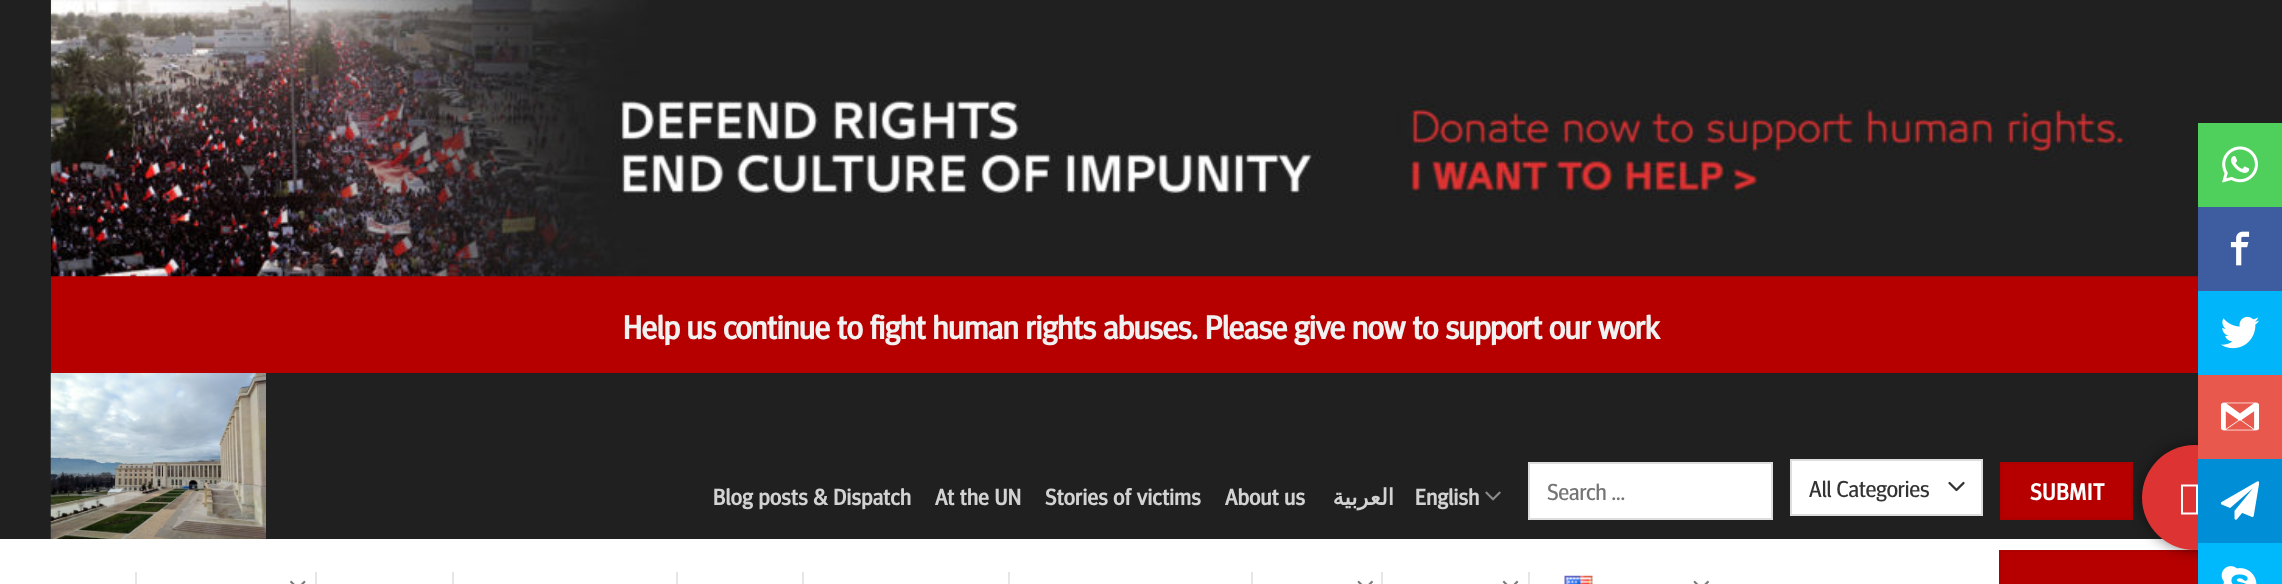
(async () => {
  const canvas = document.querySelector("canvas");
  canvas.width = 2282;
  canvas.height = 584;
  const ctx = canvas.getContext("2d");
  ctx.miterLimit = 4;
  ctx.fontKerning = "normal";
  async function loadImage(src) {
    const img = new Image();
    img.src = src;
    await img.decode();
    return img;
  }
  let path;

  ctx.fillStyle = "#202020";
  ctx.fillRect(0, 0, 2282, 584);
  ctx.fillStyle = "#b60000";
  ctx.fillRect(51, 276, 2147, 97);
  ctx.drawImage(await loadImage("img/1.png"), 50, 0, 2181, 277);
  ctx.drawImage(await loadImage("img/2.png"), 50, 373, 216, 166);
  ctx.drawImage(await loadImage("img/3.png"), 1485, 491, 16, 10);
  ctx.fillStyle = "#ffffff";
  ctx.beginPath();
  ctx.rect(1529, 463, 243, 56);
  ctx.fill();
  ctx.strokeStyle = "#dddddd";
  ctx.lineWidth = 2;
  ctx.stroke();
  ctx.fillRect(1792, 461, 189, 53);
  path = new Path2D("M1949.5 483L1956.5 490L1963.5 483");
  ctx.strokeStyle = "#333333";
  ctx.lineWidth = 2.3;
  ctx.lineCap = "round";
  ctx.lineJoin = "round";
  ctx.stroke(path);
  ctx.strokeStyle = "#dddddd";
  ctx.lineWidth = 2;
  ctx.lineJoin = "miter";
  ctx.strokeRect(1791, 460, 191, 55);
  ctx.fillStyle = "#b60000";
  ctx.beginPath();
  ctx.rect(2001, 463, 131, 56);
  ctx.fill();
  ctx.strokeStyle = "#ad0000";
  ctx.stroke();
  ctx.fillStyle = "#ffffff";
  ctx.fillRect(0, 539, 2198, 45);
  ctx.fillStyle = "#e6e6e6";
  ctx.fillRect(135, 572, 2, 12);
  ctx.drawImage(await loadImage("img/4.png"), 290, 580, 16, 4);
  for (const [x, y, w, h, color] of [
    [315, 572, 2, 12, "#e6e6e6"],
    [452, 572, 2, 12, "#e6e6e6"],
    [676, 572, 2, 12, "#e6e6e6"],
    [802, 572, 2, 12, "#e6e6e6"],
    [1008, 572, 2, 12, "#e6e6e6"],
    [1251, 572, 2, 12, "#e6e6e6"],
  ]) {
    ctx.fillStyle = color;
    ctx.fillRect(x, y, w, h);
  }
  ctx.drawImage(await loadImage("img/5.png"), 1357, 580, 16, 4);
  ctx.fillRect(1381, 572, 2, 12);
  ctx.drawImage(await loadImage("img/6.png"), 1502, 580, 17, 4);
  ctx.fillRect(1528, 572, 2, 12);
  ctx.drawImage(await loadImage("img/7.png"), 1564, 575, 29, 9);
  ctx.drawImage(await loadImage("img/5.png"), 1693, 580, 16, 4);
  ctx.fillStyle = "#b60000";
  ctx.fillRect(2001, 552, 197, 32);
  ctx.strokeRect(2000, 551, 223, 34);
  ctx.fillStyle = "#4fcf5b";
  ctx.fillRect(2198, 123, 84, 84);
  ctx.drawImage(await loadImage("img/8.png"), 2222, 146, 36, 37);
  ctx.fillStyle = "#3e5da0";
  ctx.fillRect(2198, 207, 84, 84);
  ctx.drawImage(await loadImage("img/9.png"), 2230, 231, 20, 35);
  ctx.fillStyle = "#00b5f9";
  ctx.fillRect(2198, 291, 84, 84);
  ctx.drawImage(await loadImage("img/10.png"), 2221, 316, 38, 33);
  ctx.fillStyle = "rgba(0, 0, 0, 0.5)";
  ctx.filter = "blur(7px)";
  ctx.beginPath();
  ctx.roundRect(2142, 445, 105, 105, 52.5);
  ctx.fill();
  ctx.filter = "none";
  ctx.fillStyle = "#dd3333";
  ctx.beginPath();
  ctx.arc(2194.5, 497.5, 52.5, 0, Math.PI * 2);
  ctx.fill();
  ctx.fillStyle = "#e9584c";
  ctx.fillRect(2198, 375, 84, 84);
  ctx.drawImage(await loadImage("img/11.png"), 2221, 402, 38, 29);
  ctx.fillStyle = "#008fd6";
  ctx.fillRect(2198, 459, 84, 84);
  ctx.drawImage(await loadImage("img/12.png"), 2221, 481, 38, 39);
  ctx.fillStyle = "#00b8fc";
  ctx.fillRect(2198, 543, 84, 41);
  ctx.drawImage(await loadImage("img/13.png"), 2221, 566, 36, 18);
  ctx.fillStyle = "#ffffff";
  path = new Path2D("M2181 514.5V484.5H2198V514.5ZM2183 512.5H2196V486.5H2183Z");
  ctx.fill(path);
  ctx.font = "bold 32.7px 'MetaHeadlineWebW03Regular'";
  ctx.fillStyle = "#f1f1f1";
  ctx.fillText("Help us continue to fight human rights abuses. Please give now to support our work", 623, 339);
  ctx.letterSpacing = "0.45px";
  ctx.font = "bold 22.5px 'MetaHeadlineWebW03Regular'";
  ctx.fillStyle = "#d2d2d2";
  for (const [text, x, y] of [
    ["Blog posts & Dispatch", 713, 505],
    ["At the UN", 935, 505],
    ["Stories of victims", 1045, 505],
    ["About us", 1225, 505],
  ]) {
    ctx.fillText(text, x, y);
  }
  ctx.direction = "rtl";
  ctx.font = "bold 22.5px DejaVu Sans";
  ctx.fillText("العربية", 1394, 505);
  ctx.direction = "ltr";
  ctx.font = "bold 22.5px 'MetaHeadlineWebW03Regular'";
  ctx.fillText("English", 1415, 505);
  ctx.letterSpacing = "0px";
  ctx.font = "23px 'MetaHeadlineWebW03Regular'";
  ctx.fillStyle = "#757575";
  ctx.fillText("Search …", 1547, 500);
  ctx.fillStyle = "#333333";
  ctx.fillText("All Categories", 1809, 497);
  ctx.letterSpacing = "0.75px";
  ctx.font = "bold 23px 'MetaHeadlineWebW03Regular'";
  ctx.fillStyle = "#ffffff";
  ctx.fillText("SUBMIT", 2030, 500);
})();
